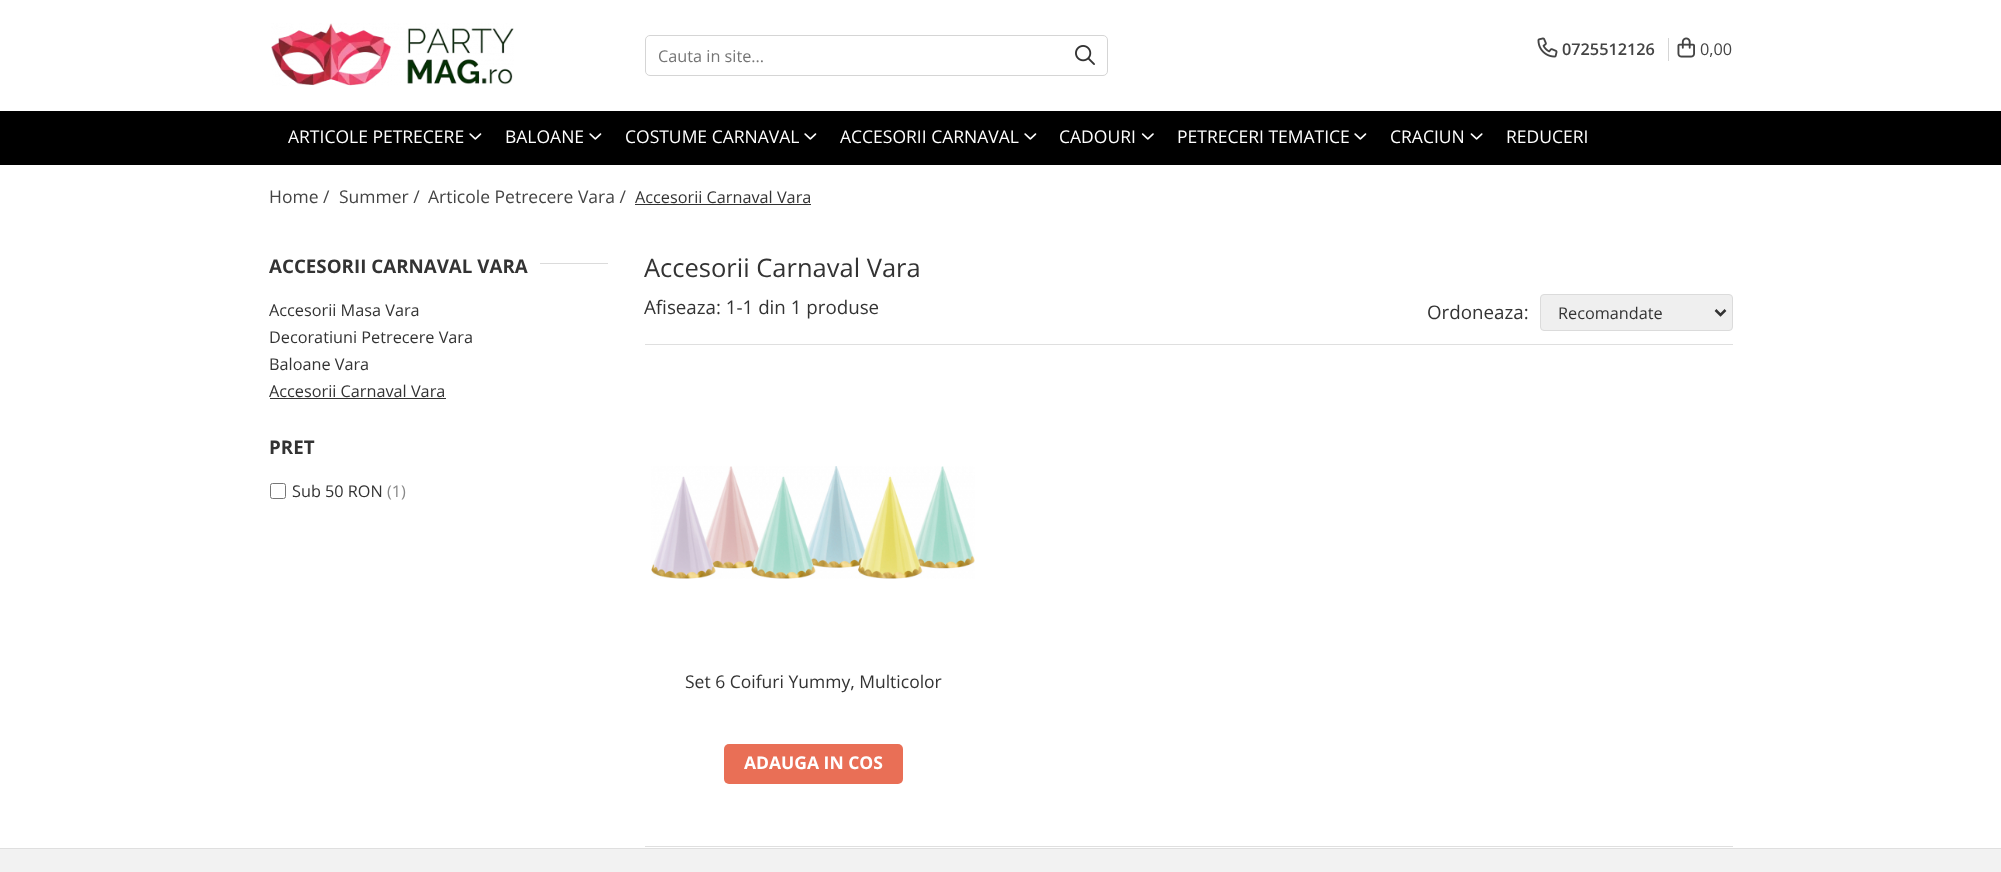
(async () => {
  const canvas = document.querySelector("canvas");
  canvas.width = 2001;
  canvas.height = 872;
  const ctx = canvas.getContext("2d");
  ctx.miterLimit = 4;
  ctx.fontKerning = "normal";
  async function loadImage(src) {
    const img = new Image();
    img.src = src;
    await img.decode();
    return img;
  }
  let path;

  ctx.fillStyle = "#ffffff";
  ctx.fillRect(0, 0, 2001, 872);
  ctx.drawImage(await loadImage("img/1.png"), 271, 23, 243, 63);
  ctx.beginPath();
  ctx.roundRect(645.5, 35.5, 462, 40, 4.5);
  ctx.strokeStyle = "#d5d5d5";
  ctx.stroke();
  ctx.drawImage(await loadImage("img/2.png"), 1075, 45, 20, 20);
  ctx.drawImage(await loadImage("img/3.png"), 1537, 37, 21, 21);
  ctx.fillStyle = "#d5d5d5";
  ctx.fillRect(1668, 38, 1, 23);
  ctx.drawImage(await loadImage("img/4.png"), 1677, 37, 18, 21);
  ctx.fillStyle = "#000000";
  ctx.fillRect(0, 111, 2001, 54);
  ctx.drawImage(await loadImage("img/5.png"), 469, 133, 13, 7);
  ctx.drawImage(await loadImage("img/5.png"), 589, 133, 13, 7);
  ctx.drawImage(await loadImage("img/5.png"), 804, 133, 13, 7);
  ctx.drawImage(await loadImage("img/5.png"), 1024, 133, 13, 7);
  ctx.drawImage(await loadImage("img/6.png"), 1141, 133, 13, 7);
  ctx.drawImage(await loadImage("img/5.png"), 1354, 133, 13, 7);
  ctx.drawImage(await loadImage("img/7.png"), 1470, 133, 13, 7);
  for (const [x, y, w, h, color] of [
    [635, 204, 176, 1, "#333333"],
    [540, 263, 68, 1, "#dbdbdb"],
    [270, 398, 176, 1, "#333333"],
  ]) {
    ctx.fillStyle = color;
    ctx.fillRect(x, y, w, h);
  }
  ctx.beginPath();
  ctx.roundRect(270.5, 483.5, 15, 15, 2);
  ctx.strokeStyle = "#767676";
  ctx.stroke();
  ctx.fillStyle = "#dfdfdf";
  ctx.fillRect(645, 344, 1088, 1);
  ctx.fillStyle = "#efefef";
  ctx.beginPath();
  ctx.roundRect(1540.5, 294.5, 192, 36, 3.5);
  ctx.fill();
  ctx.strokeStyle = "#dbdbdb";
  ctx.stroke();
  path = new Path2D("M1715.5 310L1720.5 315L1725.5 310");
  ctx.strokeStyle = "#333333";
  ctx.lineWidth = 2.5;
  ctx.stroke(path);
  ctx.fillStyle = "#dfdfdf";
  ctx.fillRect(645, 846, 1088, 1);
  ctx.drawImage(await loadImage("img/8.png"), 651, 466, 324, 113);
  ctx.fillStyle = "#e96f56";
  ctx.beginPath();
  ctx.roundRect(724, 744, 179, 40, 5);
  ctx.fill();
  ctx.fillStyle = "#f2f2f2";
  ctx.fillRect(0, 849, 2001, 23);
  ctx.fillStyle = "#dfdfdf";
  ctx.fillRect(0, 848, 2001, 1);
  ctx.font = "16.25px Open Sans";
  ctx.fillStyle = "#757575";
  ctx.fillText("Cauta in site...", 658, 62);
  ctx.font = "600 16.25px Open Sans";
  ctx.fillStyle = "#444444";
  ctx.fillText("0725512126", 1562, 55);
  ctx.font = "16.25px Open Sans";
  ctx.fillText("0,00", 1700, 55);
  ctx.font = "17.5px Open Sans";
  ctx.fillStyle = "#ffffff";
  for (const [text, x, y] of [
    ["ARTICOLE PETRECERE", 288, 143],
    ["BALOANE", 505, 143],
    ["COSTUME CARNAVAL", 625, 143],
    ["ACCESORII CARNAVAL", 840, 143],
    ["CADOURI", 1059, 143],
    ["PETRECERI TEMATICE", 1177, 143],
    ["CRACIUN", 1390, 143],
    ["REDUCERI", 1506, 143],
  ]) {
    ctx.fillText(text, x, y);
  }
  ctx.fillStyle = "#444444";
  for (const [text, x, y] of [
    ["Home /", 269, 203],
    ["Summer /", 339, 203],
    ["Articole Petrecere Vara /", 428, 203],
  ]) {
    ctx.fillText(text, x, y);
  }
  ctx.font = "16.25px Open Sans";
  ctx.fillStyle = "#333333";
  ctx.fillText("Accesorii Carnaval Vara", 635, 203);
  ctx.font = "bold 18.75px Open Sans";
  ctx.fillText("ACCESORII CARNAVAL VARA", 269, 273);
  ctx.font = "16.25px Open Sans";
  for (const [text, x, y] of [
    ["Accesorii Masa Vara", 269, 316],
    ["Decoratiuni Petrecere Vara", 269, 343],
    ["Baloane Vara", 269, 370],
    ["Accesorii Carnaval Vara", 269, 397],
  ]) {
    ctx.fillText(text, x, y);
  }
  ctx.font = "bold 18.75px Open Sans";
  ctx.fillText("PRET", 269, 454);
  ctx.font = "16.25px Open Sans";
  ctx.fillText("Sub 50 RON", 292, 497);
  ctx.fillStyle = "#888888";
  ctx.fillText("(1)", 387, 497);
  ctx.font = "25.5px Open Sans";
  ctx.fillStyle = "#333333";
  ctx.fillText("Accesorii Carnaval Vara", 644, 277);
  ctx.font = "18.75px Open Sans";
  ctx.fillText("Afiseaza: 1-1 din 1 produse", 644, 314);
  ctx.fillText("Ordoneaza:", 1427, 319);
  ctx.font = "16.25px Open Sans";
  ctx.fillText("Recomandate", 1558, 319);
  ctx.font = "17.5px Open Sans";
  ctx.fillText("Set 6 Coifuri Yummy, Multicolor", 685, 688);
  ctx.font = "bold 17.5px Open Sans";
  ctx.fillStyle = "#ffffff";
  ctx.fillText("ADAUGA IN COS", 744, 769);
})();
